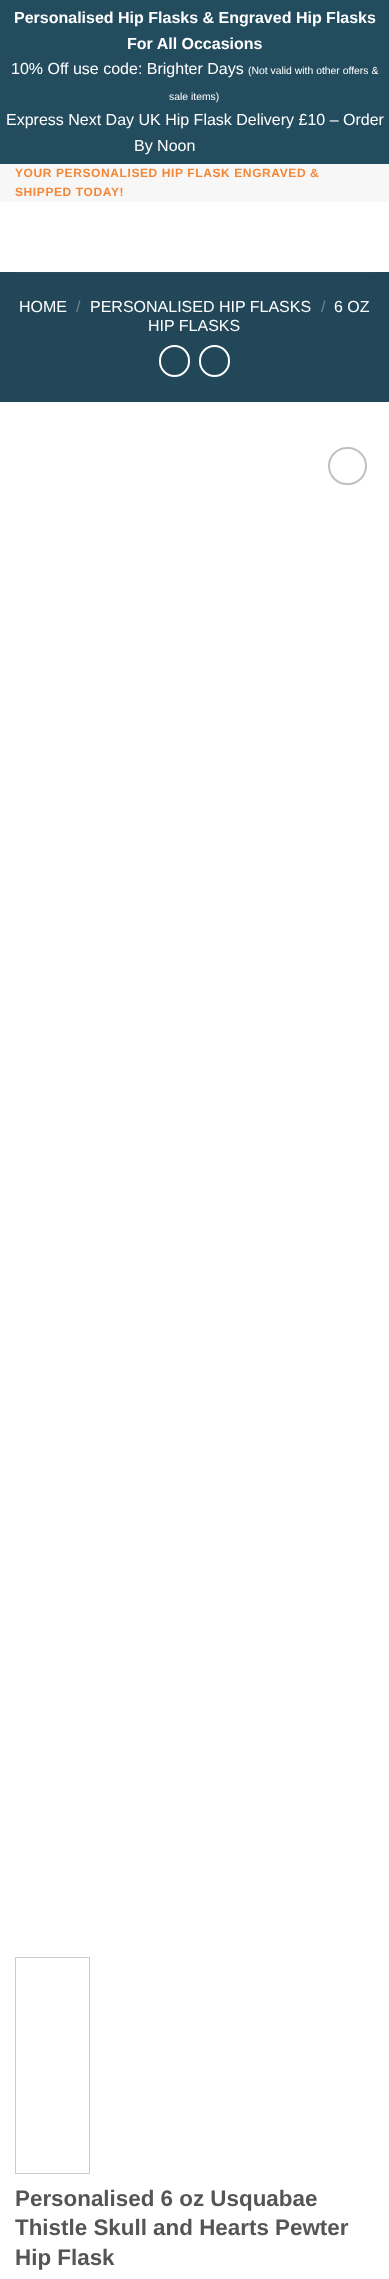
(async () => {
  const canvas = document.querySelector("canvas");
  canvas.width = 389;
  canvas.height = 2279;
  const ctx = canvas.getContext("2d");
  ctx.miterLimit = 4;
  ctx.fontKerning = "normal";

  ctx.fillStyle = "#244c5f";
  ctx.fillRect(0, 0, 389, 2279);
  for (const [x, y, w, h, color] of [
    [0, 202, 389, 2077, "#ffffff"],
    [0, 164, 389, 38, "#f7f7f7"],
    [0, 272, 389, 130, "#224759"],
    [15, 272, 359, 1, "#2b4c5c"],
  ]) {
    ctx.fillStyle = color;
    ctx.fillRect(x, y, w, h);
  }
  ctx.beginPath();
  ctx.roundRect(160, 346, 29, 30, 14.5);
  ctx.strokeStyle = "#ffffff";
  ctx.lineWidth = 2;
  ctx.stroke();
  ctx.beginPath();
  ctx.roundRect(200, 346, 29, 30, 14.5);
  ctx.stroke();
  ctx.beginPath();
  ctx.roundRect(329, 448, 37, 36, 18);
  ctx.strokeStyle = "#c0c0c0";
  ctx.stroke();
  ctx.strokeStyle = "#cccccc";
  ctx.lineWidth = 1;
  ctx.strokeRect(15.5, 1957.5, 74, 216);
  ctx.font = "bold 16px Liberation Sans";
  ctx.fillStyle = "#ffffff";
  ctx.fillText("Personalised Hip Flasks & Engraved Hip Flasks", 14, 23);
  ctx.fillText("For All Occasions", 127, 49);
  ctx.font = "16px Liberation Sans";
  ctx.fillText("10% Off use code: Brighter Days", 11, 74);
  ctx.font = "10.4px Liberation Sans";
  ctx.fillText("(Not valid with other offers &", 248, 74);
  ctx.fillText("sale items)", 169, 100);
  ctx.font = "16px Liberation Sans";
  ctx.fillText("Express Next Day UK Hip Flask Delivery £10 – Order", 6, 125);
  ctx.fillText("By Noon", 134, 151);
  ctx.letterSpacing = "0.6px";
  ctx.font = "bold 12px Liberation Sans";
  ctx.fillStyle = "#f58635";
  ctx.fillText("YOUR PERSONALISED HIP FLASK ENGRAVED &", 15, 177);
  ctx.fillText("SHIPPED TODAY!", 15, 196);
  ctx.letterSpacing = "0px";
  ctx.font = "16px Liberation Sans";
  ctx.fillStyle = "#ffffff";
  ctx.fillText("HOME", 19, 312);
  ctx.fillStyle = "#6f8793";
  ctx.fillText("/", 76, 312);
  ctx.fillStyle = "#ffffff";
  ctx.fillText("PERSONALISED HIP FLASKS", 90, 312);
  ctx.fillStyle = "#6f8793";
  ctx.fillText("/", 321, 312);
  ctx.fillStyle = "#ffffff";
  ctx.fillText("6 OZ", 334, 312);
  ctx.fillText("HIP FLASKS", 148, 331);
  ctx.font = "bold 22.4px Liberation Sans";
  ctx.fillStyle = "#555555";
  for (const [text, x, y] of [
    ["Personalised 6 oz Usquabae", 15, 2206],
    ["Thistle Skull and Hearts Pewter", 15, 2235],
    ["Hip Flask", 15, 2265],
  ]) {
    ctx.fillText(text, x, y);
  }
})();
